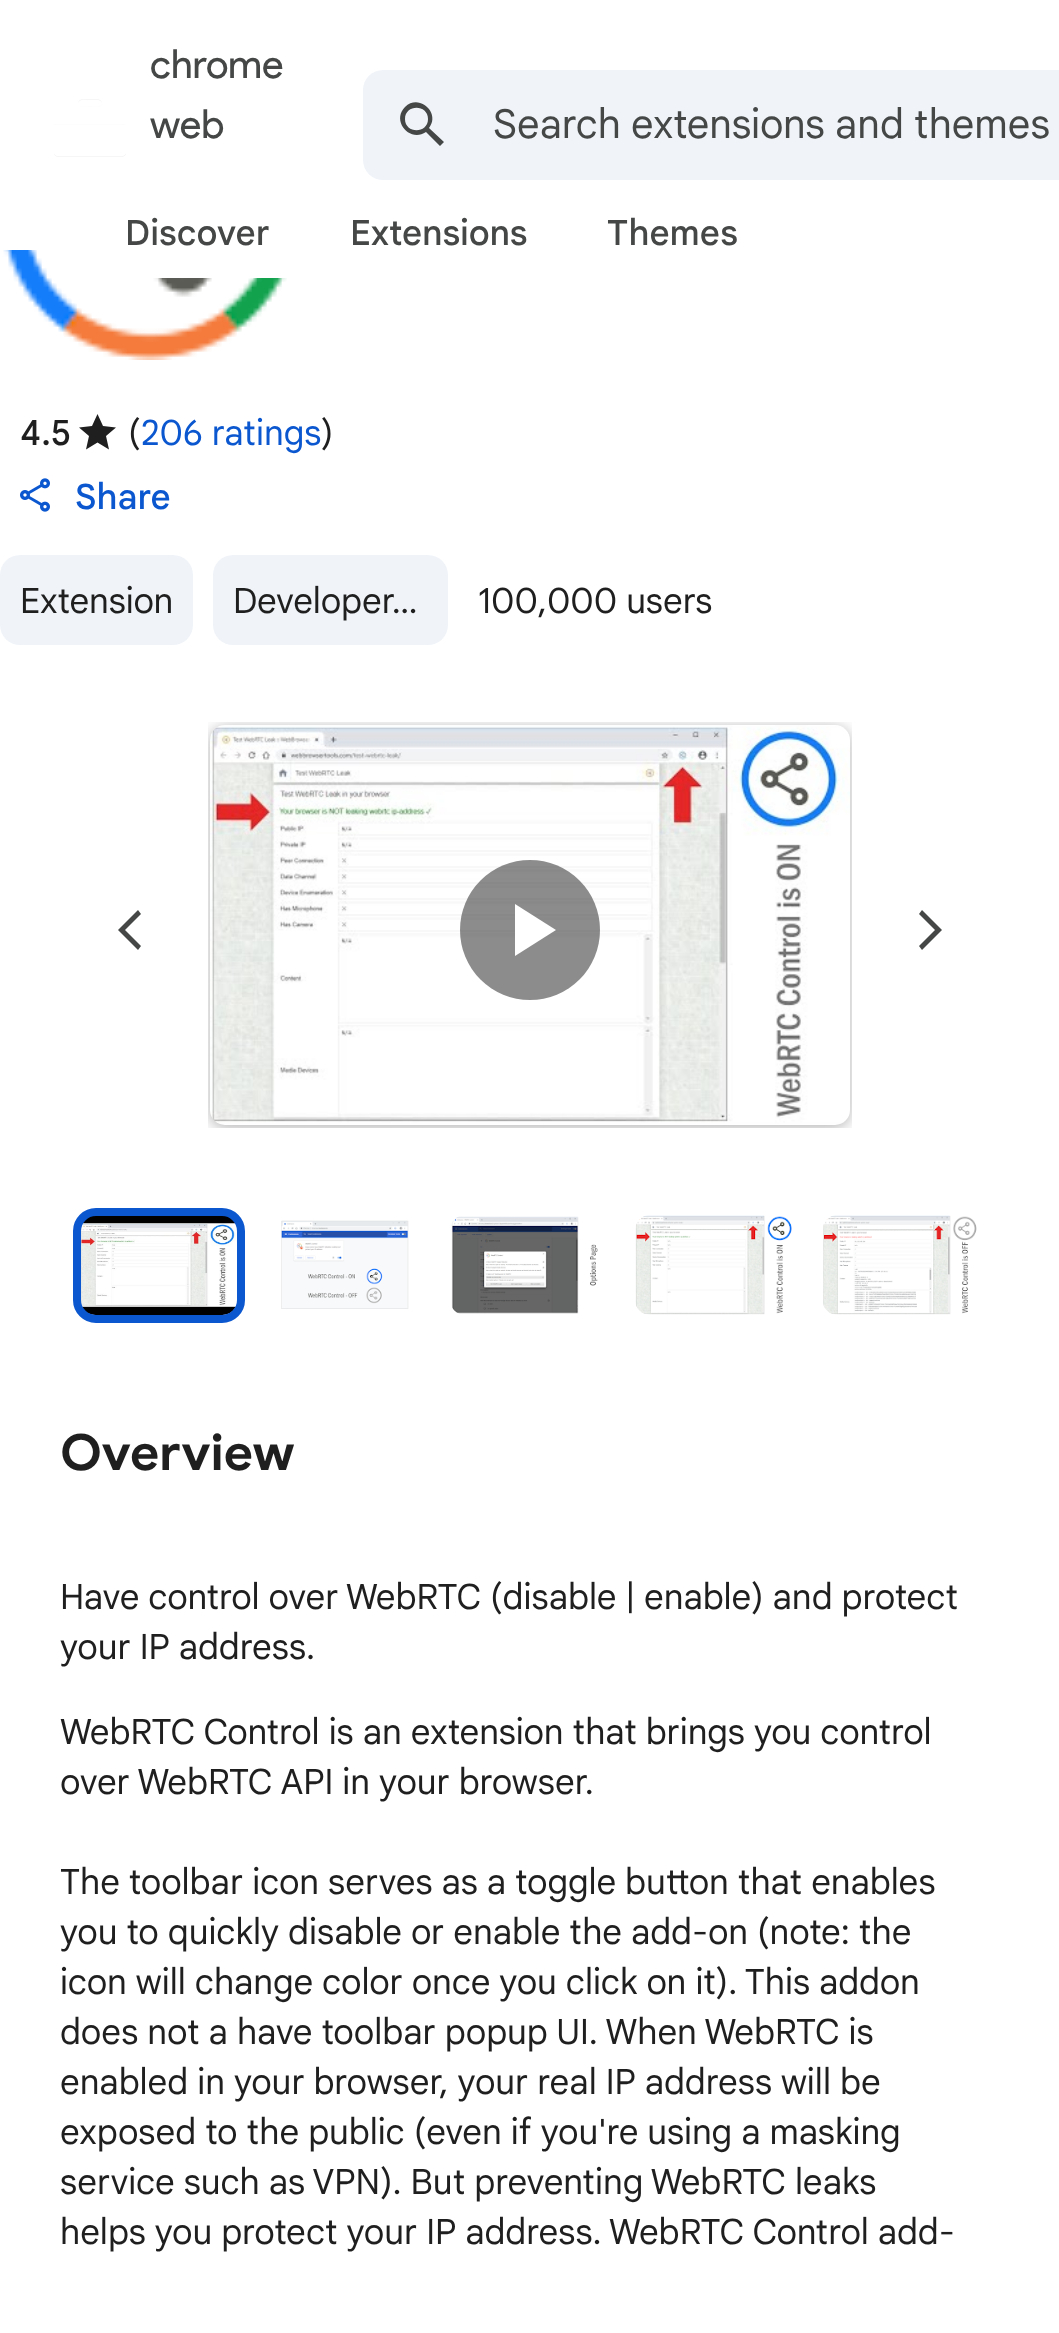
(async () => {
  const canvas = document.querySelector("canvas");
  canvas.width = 1059;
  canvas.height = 2333;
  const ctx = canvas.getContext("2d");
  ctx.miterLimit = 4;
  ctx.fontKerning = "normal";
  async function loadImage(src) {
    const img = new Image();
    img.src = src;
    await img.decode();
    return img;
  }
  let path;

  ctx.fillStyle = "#ffffff";
  ctx.fillRect(0, 0, 1059, 2333);
  ctx.drawImage(await loadImage("img/1.png"), 54, 99, 72, 58);
  ctx.fillStyle = "#f0f4f9";
  ctx.beginPath();
  ctx.roundRect(363, 70, 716, 110, 20);
  ctx.fill();
  ctx.fillStyle = "#444746";
  path = new Path2D("M444 142L429 128C441 113 419 93 405 107C391 121 410 143 426 132L440 146ZM405 119C405 104 428 104 428 119C428 134 405 134 405 119Z");
  ctx.fill(path);
  ctx.drawImage(await loadImage("img/2.png"), 3, 250, 284, 110);
  ctx.fillStyle = "#ffffff";
  ctx.fillRect(138, 250, 149, 28);
  ctx.fillStyle = "#1f1f1f";
  path = new Path2D("M97.5 442.5L109 449.5L106 436L116 427.5L103 426L97.5 414L92 426L79 427.5L89 436L86 449.5Z");
  ctx.fill(path);
  ctx.drawImage(await loadImage("img/3.png"), 20, 478, 30, 34);
  ctx.fillStyle = "#f0f4f9";
  ctx.beginPath();
  ctx.roundRect(0, 555, 193, 90, 20);
  ctx.fill();
  ctx.beginPath();
  ctx.roundRect(213, 555, 235, 90, 20);
  ctx.fill();
  ctx.fillStyle = "#444746";
  path = new Path2D("M141 914L138 910L118 930L138 950L141 946L125 930");
  ctx.fill(path);
  ctx.drawImage(await loadImage("img/4.png"), 208, 722, 644, 406);
  ctx.fillStyle = "rgba(0, 0, 0, 0.45)";
  ctx.beginPath();
  ctx.arc(530, 930, 70, 0, Math.PI * 2);
  ctx.fill();
  ctx.fillStyle = "#ffffff";
  path = new Path2D("M515 904V956L556 930Z");
  ctx.fill(path);
  ctx.fillStyle = "#444746";
  path = new Path2D("M919 946L922 950L942 930L922 910L919 914L935 930");
  ctx.fill(path);
  ctx.drawImage(await loadImage("img/5.png"), 81, 1216, 156, 99);
  ctx.beginPath();
  ctx.roundRect(77, 1212, 164, 107, 19);
  ctx.strokeStyle = "#0b57d0";
  ctx.lineWidth = 8;
  ctx.stroke();
  ctx.drawImage(await loadImage("img/6.png"), 281, 1220, 128, 89);
  ctx.drawImage(await loadImage("img/7.png"), 451, 1216, 147, 98);
  ctx.drawImage(await loadImage("img/8.png"), 635, 1215, 157, 100);
  ctx.drawImage(await loadImage("img/9.png"), 823, 1215, 154, 100);
  ctx.font = "40px Product Sans";
  ctx.fillText("chrome", 150, 78);
  ctx.fillText("web", 150, 138);
  ctx.font = "40px Google Sans";
  ctx.fillText("Search extensions and themes", 493, 138);
  ctx.font = "500 35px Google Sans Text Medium";
  for (const [text, x, y] of [
    ["Discover", 125, 245],
    ["Extensions", 350, 245],
    ["Themes", 607, 245],
  ]) {
    ctx.fillText(text, x, y);
  }
  ctx.font = "500 35px Google Sans";
  ctx.fillStyle = "#1f1f1f";
  ctx.fillText("4.5", 20, 445);
  ctx.font = "35px Google Sans";
  ctx.fillText("(", 128, 445);
  ctx.fillStyle = "#0b57d0";
  ctx.fillText("206 ratings", 141, 445);
  ctx.fillStyle = "#1f1f1f";
  ctx.fillText(")", 321, 445);
  ctx.font = "500 35px Google Sans Text Medium";
  ctx.fillStyle = "#0b57d0";
  ctx.fillText("Share", 75, 509);
  ctx.font = "35px Google Sans";
  ctx.fillStyle = "#1f1f1f";
  for (const [text, x, y] of [
    ["Extension", 20, 613],
    ["Developer…", 233, 613],
    ["100,000 users", 478, 613],
  ]) {
    ctx.fillText(text, x, y);
  }
  ctx.font = "bold 50px Google Sans";
  ctx.fillText("Overview", 60, 1470);
  ctx.font = "35px Google Sans";
  for (const [text, x, y] of [
    ["Have control over WebRTC (disable | enable) and protect", 60, 1609],
    ["your IP address.", 60, 1659],
    ["WebRTC Control is an extension that brings you control", 60, 1744],
    ["over WebRTC API in your browser.", 60, 1794],
    ["The toolbar icon serves as a toggle button that enables", 60, 1894],
    ["you to quickly disable or enable the add-on (note: the", 60, 1944],
    ["icon will change color once you click on it). This addon", 60, 1994],
    ["does not a have toolbar popup UI. When WebRTC is", 60, 2044],
    ["enabled in your browser, your real IP address will be", 60, 2094],
    ["exposed to the public (even if you're using a masking", 60, 2144],
    ["service such as VPN). But preventing WebRTC leaks", 60, 2194],
    ["helps you protect your IP address. WebRTC Control add-", 60, 2244],
  ]) {
    ctx.fillText(text, x, y);
  }
})();
